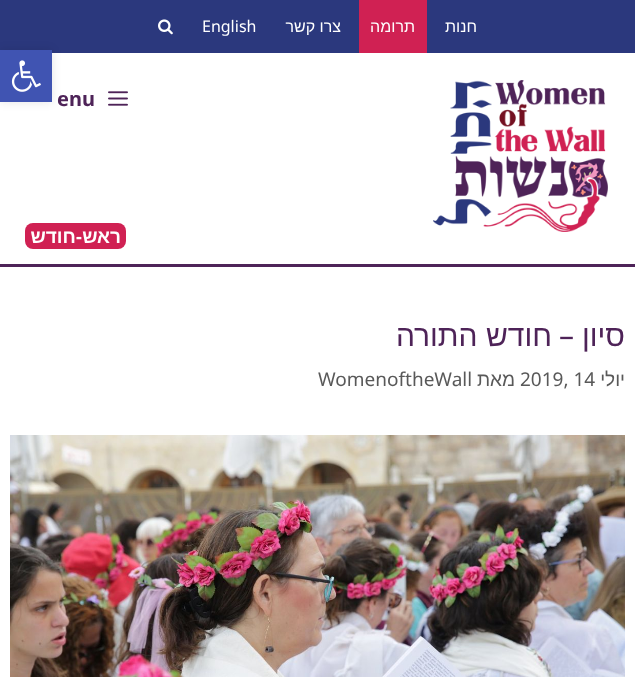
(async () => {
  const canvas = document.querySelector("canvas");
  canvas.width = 635;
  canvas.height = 677;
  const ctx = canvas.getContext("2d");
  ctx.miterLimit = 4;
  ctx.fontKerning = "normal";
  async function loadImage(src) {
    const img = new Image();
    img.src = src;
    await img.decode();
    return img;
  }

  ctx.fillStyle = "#ffffff";
  ctx.fillRect(0, 0, 635, 677);
  ctx.fillStyle = "#2b387d";
  ctx.fillRect(0, 0, 635, 53);
  ctx.fillStyle = "#d02153";
  ctx.fillRect(359, 0, 68, 53);
  ctx.drawImage(await loadImage("img/1.png"), 158, 19, 15, 16);
  ctx.fillStyle = "rgba(0, 0, 0, 0.1)";
  ctx.filter = "blur(5px)";
  ctx.beginPath();
  ctx.rect(0, 50, 52, 52);
  ctx.fill();
  ctx.filter = "none";
  ctx.fillStyle = "#4054b2";
  ctx.fillRect(0, 50, 52, 52);
  ctx.drawImage(await loadImage("img/2.png"), 11, 60, 30, 32);
  ctx.fillStyle = "#4e2358";
  ctx.fillRect(0, 264, 635, 3);
  ctx.drawImage(await loadImage("img/3.png"), 433, 80, 175, 152);
  ctx.drawImage(await loadImage("img/4.png"), 108, 91, 20, 15);
  ctx.fillStyle = "#d02153";
  ctx.beginPath();
  ctx.roundRect(25, 223, 101, 26, 8);
  ctx.fill();
  ctx.drawImage(await loadImage("img/5.png"), 10, 435, 615, 242);
  ctx.direction = "rtl";
  ctx.font = "16px Liberation Sans";
  ctx.fillStyle = "#ffffff";
  for (const [text, x, y] of [
    ["חנות", 477, 32],
    ["תרומה", 415, 32],
    ["צרו קשר", 341, 32],
  ]) {
    ctx.fillText(text, x, y);
  }
  ctx.direction = "ltr";
  ctx.font = "16px Noto Sans";
  ctx.fillText("English", 202, 32);
  ctx.font = "bold 20px Noto Sans";
  ctx.fillStyle = "#4e2358";
  ctx.fillText("enu", 57, 106);
  ctx.direction = "rtl";
  ctx.font = "bold 19px Liberation Sans";
  ctx.fillStyle = "#ffffff";
  ctx.fillText("ראש-חודש", 121, 243);
  ctx.font = "30px Liberation Sans";
  ctx.fillStyle = "#4e2358";
  ctx.fillText("סיון", 625, 346);
  ctx.font = "30px Noto Sans";
  ctx.fillText("–", 574, 346);
  ctx.font = "30px Liberation Sans";
  ctx.fillText("חודש התורה", 552, 346);
  ctx.font = "19px Liberation Sans";
  ctx.fillStyle = "#595959";
  ctx.fillText("יולי", 625, 386);
  ctx.direction = "ltr";
  ctx.font = "19px Noto Sans";
  ctx.fillText("2019, 14", 520, 386);
  ctx.direction = "rtl";
  ctx.font = "19px Liberation Sans";
  ctx.fillText("מאת", 515, 386);
  ctx.direction = "ltr";
  ctx.font = "19px Noto Sans";
  ctx.fillText("WomenoftheWall", 318, 386);
})();
